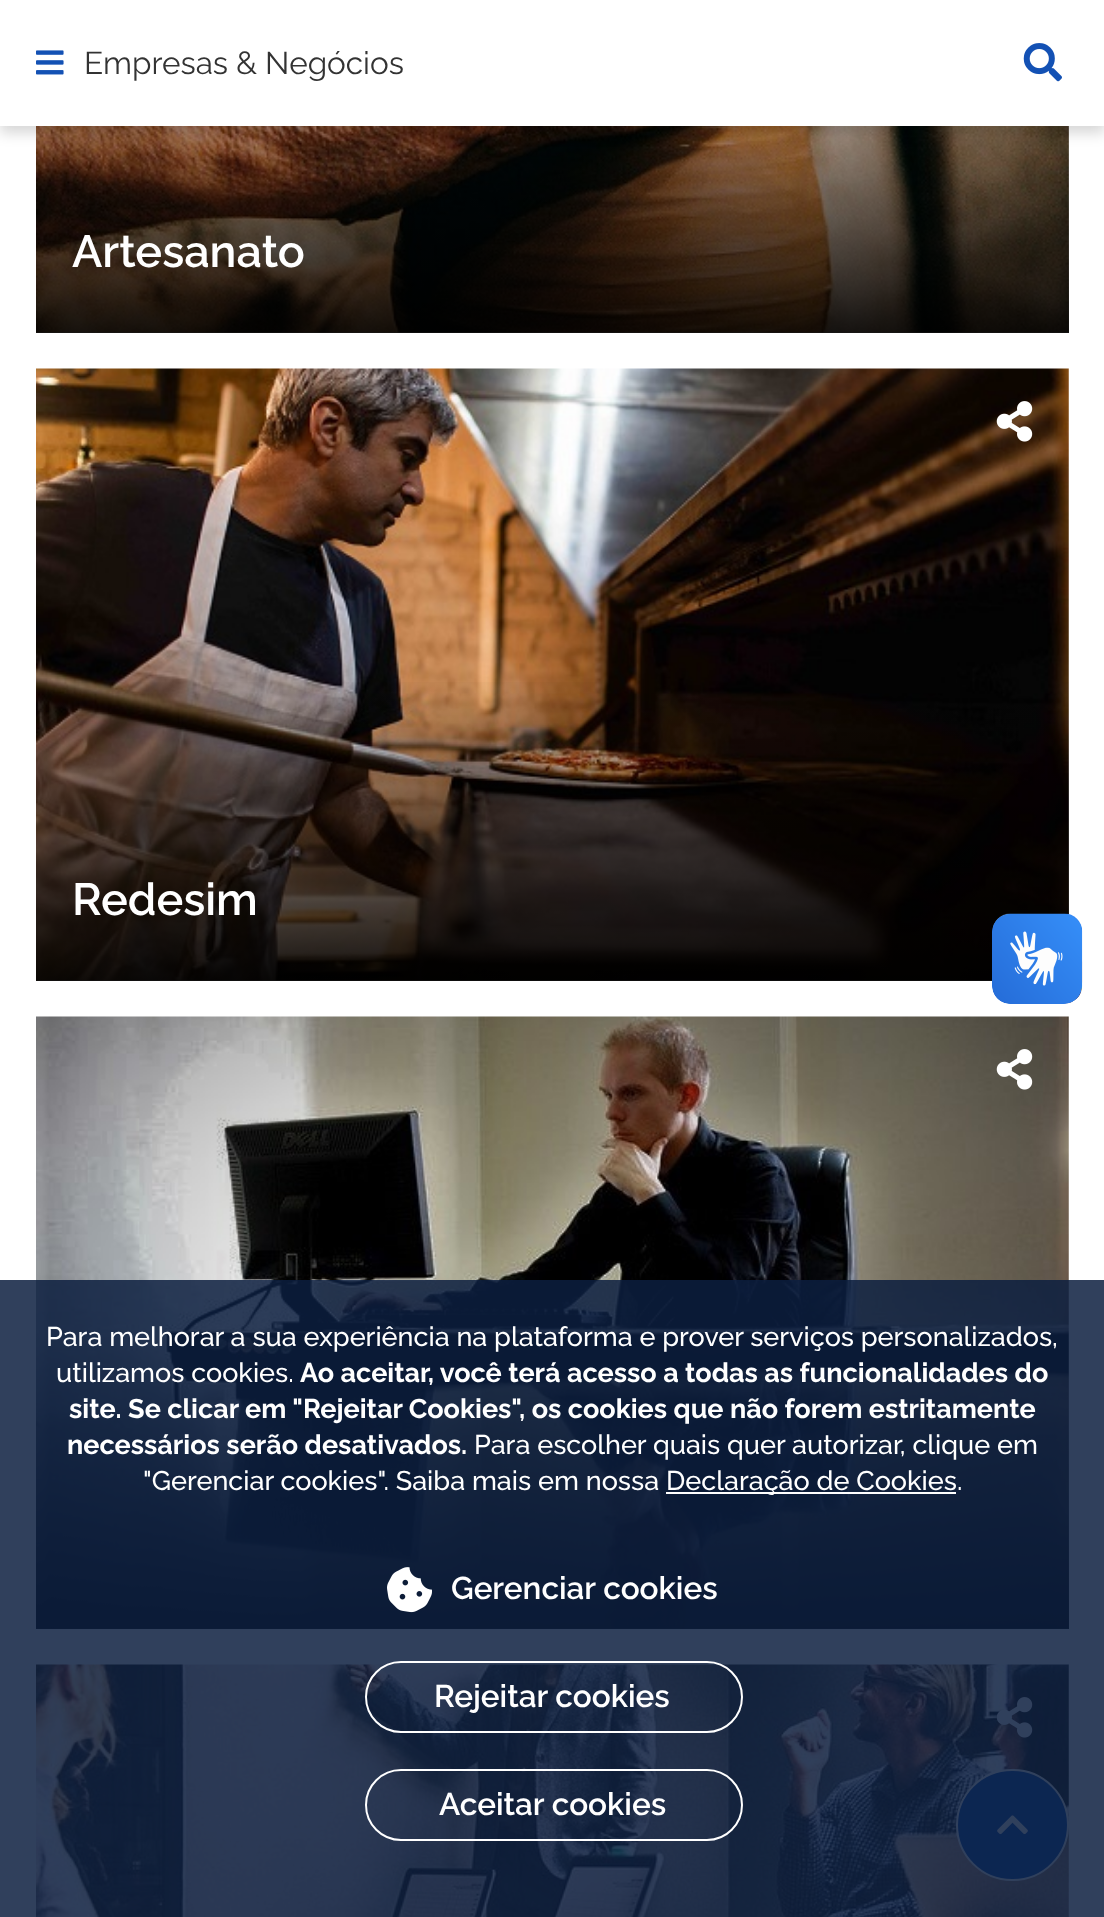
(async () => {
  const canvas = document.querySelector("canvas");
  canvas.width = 1104;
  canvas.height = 1917;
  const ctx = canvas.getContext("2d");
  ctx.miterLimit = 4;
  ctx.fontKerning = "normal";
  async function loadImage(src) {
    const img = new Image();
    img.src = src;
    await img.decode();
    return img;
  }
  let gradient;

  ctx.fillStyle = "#ffffff";
  ctx.fillRect(0, 0, 1104, 1917);
  ctx.drawImage(await loadImage("img/3.png"), 36, 126, 1033, 207);
  gradient = ctx.createLinearGradient(552, -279, 552, 333);
  gradient.addColorStop(0.5, "rgba(0, 0, 0, 0)");
  gradient.addColorStop(1, "rgba(0, 0, 0, 0.9)");
  ctx.fillStyle = gradient;
  ctx.fillRect(36, 126, 1033, 207);
  ctx.fillStyle = "rgba(0, 0, 0, 0.16)";
  ctx.filter = "blur(7px)";
  ctx.beginPath();
  ctx.rect(0, 7, 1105, 126);
  ctx.fill();
  ctx.filter = "none";
  ctx.fillStyle = "#ffffff";
  ctx.fillRect(0, 0, 1104, 126);
  ctx.drawImage(await loadImage("img/1.png"), 36, 50, 28, 25);
  ctx.drawImage(await loadImage("img/2.png"), 1023, 43, 39, 39);
  ctx.drawImage(await loadImage("img/4.png"), 36, 368, 1033, 613);
  gradient = ctx.createLinearGradient(552, 369, 552, 981);
  gradient.addColorStop(0.5, "rgba(0, 0, 0, 0)");
  gradient.addColorStop(1, "rgba(0, 0, 0, 0.9)");
  ctx.fillStyle = gradient;
  ctx.fillRect(36, 682, 1033, 299);
  ctx.drawImage(await loadImage("img/5.png"), 996, 401, 37, 41);
  ctx.drawImage(await loadImage("img/6.png"), 36, 1016, 1033, 613);
  gradient = ctx.createLinearGradient(552, 1017, 552, 1629);
  gradient.addColorStop(0.5, "rgba(0, 0, 0, 0)");
  gradient.addColorStop(1, "rgba(0, 0, 0, 0.9)");
  ctx.fillStyle = gradient;
  ctx.fillRect(36, 1330, 1033, 299);
  ctx.drawImage(await loadImage("img/7.png"), 996, 1049, 37, 41);
  ctx.drawImage(await loadImage("img/8.png"), 36, 1664, 1033, 253);
  ctx.drawImage(await loadImage("img/9.png"), 996, 1697, 37, 41);
  ctx.fillStyle = "#1351b4";
  ctx.beginPath();
  ctx.roundRect(957, 1770, 111, 110, 55);
  ctx.fill();
  ctx.strokeStyle = "#ffffff";
  ctx.lineWidth = 2;
  ctx.stroke();
  ctx.drawImage(await loadImage("img/10.png"), 997, 1815, 31, 20);
  ctx.drawImage(await loadImage("img/11.png"), 992, 913, 91, 91);
  ctx.drawImage(await loadImage("img/12.png"), 992, 914, 90, 90);
  ctx.fillStyle = "rgba(12, 30, 63, 0.85)";
  ctx.fillRect(0, 1280, 1104, 637);
  ctx.fillStyle = "#ffffff";
  ctx.fillRect(666, 1492, 290, 2);
  ctx.drawImage(await loadImage("img/13.png"), 387, 1567, 45, 46);
  ctx.beginPath();
  ctx.roundRect(366, 1662, 376, 70, 35);
  ctx.stroke();
  ctx.beginPath();
  ctx.roundRect(366, 1770, 376, 70, 35);
  ctx.stroke();
  ctx.font = "31.5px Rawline";
  ctx.fillStyle = "#333333";
  ctx.fillText("Empresas & Negócios", 84, 74);
  ctx.font = "600 45px Rawline";
  ctx.fillStyle = "#ffffff";
  ctx.fillText("Artesanato", 72, 267);
  ctx.fillText("Redesim", 72, 915);
  ctx.font = "500 27px Rawline";
  ctx.fillText("Para melhorar a sua experiência na plataforma e prover serviços personalizados,", 46, 1346);
  ctx.fillText("utilizamos cookies.", 56, 1382);
  ctx.font = "bold 27px Rawline";
  for (const [text, x, y] of [
    ["Ao aceitar, você terá acesso a todas as funcionalidades do", 300, 1382],
    ["site. Se clicar em \"Rejeitar Cookies\", os cookies que não forem estritamente", 69, 1418],
    ["necessários serão desativados.", 67, 1454],
  ]) {
    ctx.fillText(text, x, y);
  }
  ctx.font = "500 27px Rawline";
  for (const [text, x, y] of [
    ["Para escolher quais quer autorizar, clique em", 474, 1454],
    ["\"Gerenciar cookies\". Saiba mais em nossa", 143, 1490],
    ["Declaração de Cookies.", 666, 1490],
  ]) {
    ctx.fillText(text, x, y);
  }
  ctx.font = "600 31.5px Rawline";
  for (const [text, x, y] of [
    ["Gerenciar cookies", 451, 1599],
    ["Rejeitar cookies", 434, 1707],
    ["Aceitar cookies", 439, 1815],
  ]) {
    ctx.fillText(text, x, y);
  }
})();
